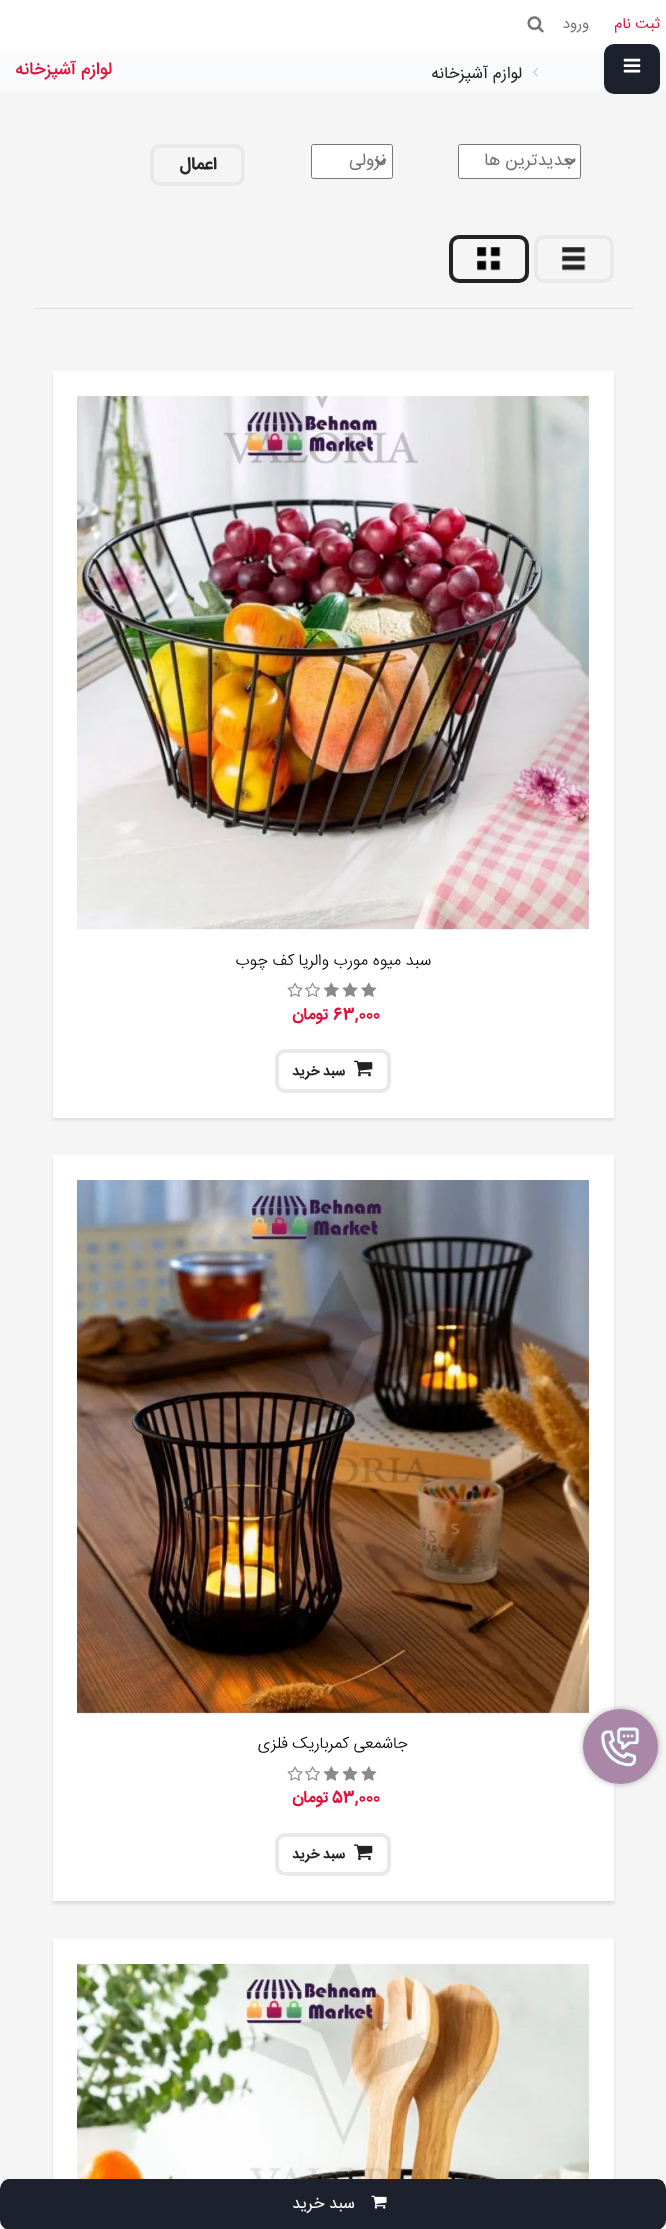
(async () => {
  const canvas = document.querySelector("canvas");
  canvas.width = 666;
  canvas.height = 2229;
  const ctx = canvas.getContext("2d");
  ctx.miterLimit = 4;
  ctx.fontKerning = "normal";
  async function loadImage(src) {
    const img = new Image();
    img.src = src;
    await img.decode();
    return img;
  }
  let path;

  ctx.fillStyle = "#f5f5f5";
  ctx.fillRect(0, 0, 666, 2229);
  ctx.fillStyle = "#ffffff";
  ctx.fillRect(0, 0, 666, 53);
  ctx.drawImage(await loadImage("img/1.png"), 527, 16, 17, 17);
  ctx.fillStyle = "rgba(0, 0, 0, 0.1)";
  ctx.filter = "blur(1.5px)";
  ctx.beginPath();
  ctx.rect(53, 1941, 561, 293);
  ctx.fill();
  ctx.filter = "none";
  ctx.fillStyle = "#1d212d";
  ctx.beginPath();
  ctx.roundRect(0, 2179, 666, 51, 10);
  ctx.fill();
  ctx.fillStyle = "#ffffff";
  ctx.fillRect(53, 1939, 561, 240);
  ctx.drawImage(await loadImage("img/21.png"), 77, 1964, 512, 215);
  path = new Path2D("M3.5 2182C5 2180.5 7.5 2179.5 10 2179.5H656C658.5 2179.5 661 2180.5 663 2182");
  ctx.strokeStyle = "#1d212d";
  ctx.lineWidth = 1.2;
  ctx.stroke(path);
  ctx.drawImage(await loadImage("img/2.png"), 371, 2195, 16, 14);
  ctx.fillRect(0, 54, 666, 1);
  ctx.fillStyle = "#f9fafb";
  ctx.fillRect(0, 55, 666, 36);
  ctx.fillStyle = "#1d212d";
  ctx.beginPath();
  ctx.roundRect(604, 44, 56, 50, 10);
  ctx.fill();
  ctx.drawImage(await loadImage("img/3.png"), 623, 58, 18, 15);
  ctx.drawImage(await loadImage("img/4.png"), 533, 67, 5, 10);
  ctx.fillStyle = "#e0e0e0";
  ctx.fillRect(34, 308, 599, 1);
  ctx.fillStyle = "#ffffff";
  ctx.beginPath();
  ctx.roundRect(458.5, 144.5, 122, 34, 2);
  ctx.fill();
  ctx.strokeStyle = "#767676";
  ctx.lineWidth = 1;
  ctx.stroke();
  path = new Path2D("M565 159L570 164L575 159");
  ctx.strokeStyle = "#737475";
  ctx.lineWidth = 2.5;
  ctx.stroke(path);
  ctx.beginPath();
  ctx.roundRect(311.5, 144.5, 81, 34, 2);
  ctx.fill();
  ctx.strokeStyle = "#767676";
  ctx.lineWidth = 1;
  ctx.stroke();
  path = new Path2D("M375.5 159L380.5 164L385.5 159");
  ctx.strokeStyle = "#737475";
  ctx.lineWidth = 2.5;
  ctx.stroke(path);
  ctx.beginPath();
  ctx.roundRect(152, 146, 91, 38, 8);
  ctx.strokeStyle = "#e9e9e9";
  ctx.lineWidth = 4;
  ctx.stroke();
  ctx.beginPath();
  ctx.roundRect(536, 237, 76, 44, 8);
  ctx.stroke();
  ctx.drawImage(await loadImage("img/5.png"), 562, 247, 24, 24);
  ctx.beginPath();
  ctx.roundRect(451, 237, 76, 44, 8);
  ctx.strokeStyle = "#232323";
  ctx.stroke();
  ctx.drawImage(await loadImage("img/6.png"), 477, 247, 24, 24);
  ctx.fillStyle = "rgba(0, 0, 0, 0.1)";
  ctx.filter = "blur(1.5px)";
  ctx.beginPath();
  ctx.rect(53, 374, 561, 746);
  ctx.fill();
  ctx.filter = "none";
  ctx.fillStyle = "#ffffff";
  ctx.fillRect(53, 371, 561, 747);
  ctx.drawImage(await loadImage("img/7.png"), 77, 396, 512, 534);
  ctx.drawImage(await loadImage("img/8.png"), 361, 982, 16, 15);
  ctx.drawImage(await loadImage("img/9.png"), 342, 982, 16, 15);
  ctx.drawImage(await loadImage("img/10.png"), 323, 982, 16, 15);
  ctx.drawImage(await loadImage("img/11.png"), 305, 982, 15, 15);
  ctx.drawImage(await loadImage("img/12.png"), 287, 982, 16, 15);
  ctx.beginPath();
  ctx.roundRect(277, 1051, 112, 40, 8);
  ctx.strokeStyle = "#e9e9e9";
  ctx.stroke();
  ctx.drawImage(await loadImage("img/13.png"), 353, 1060, 20, 17);
  ctx.fillStyle = "rgba(0, 0, 0, 0.1)";
  ctx.filter = "blur(1.5px)";
  ctx.beginPath();
  ctx.rect(53, 1158, 561, 746);
  ctx.fill();
  ctx.filter = "none";
  ctx.fillStyle = "#ffffff";
  ctx.fillRect(53, 1155, 561, 746);
  ctx.drawImage(await loadImage("img/14.png"), 77, 1180, 512, 534);
  ctx.drawImage(await loadImage("img/15.png"), 361, 1766, 16, 15);
  ctx.drawImage(await loadImage("img/16.png"), 342, 1766, 16, 15);
  ctx.drawImage(await loadImage("img/17.png"), 323, 1766, 16, 15);
  ctx.drawImage(await loadImage("img/18.png"), 305, 1766, 15, 15);
  ctx.drawImage(await loadImage("img/19.png"), 287, 1766, 16, 15);
  ctx.beginPath();
  ctx.roundRect(277, 1835, 112, 39, 8);
  ctx.stroke();
  ctx.drawImage(await loadImage("img/20.png"), 353, 1844, 20, 17);
  ctx.fillStyle = "rgba(0, 0, 0, 0.3)";
  ctx.filter = "blur(3px)";
  ctx.beginPath();
  ctx.roundRect(583, 1709, 75, 75, 37.5);
  ctx.fill();
  ctx.filter = "none";
  ctx.fillStyle = "#aa87a9";
  ctx.beginPath();
  ctx.arc(620.5, 1746.5, 37.5, 0, Math.PI * 2);
  ctx.fill();
  ctx.drawImage(await loadImage("img/22.png"), 600, 1727, 40, 40);
  ctx.direction = "rtl";
  ctx.font = "15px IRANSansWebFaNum";
  ctx.fillStyle = "#dc143c";
  ctx.fillText("ثبت نام", 660, 28);
  ctx.fillStyle = "#737475";
  ctx.fillText("ورود", 589, 28);
  ctx.font = "16.5px IRANSansWebFaNum";
  ctx.fillStyle = "#ffffff";
  ctx.fillText("سبد خرید", 355, 2208);
  ctx.font = "16.25px IRANSansWebFaNum";
  ctx.fillStyle = "#232323";
  ctx.fillText("لوازم آشپزخانه", 522, 78);
  ctx.font = "500 17.5px IRANSansWebFaNum";
  ctx.fillStyle = "#dc143c";
  ctx.fillText("لوازم آشپزخانه", 112, 74);
  ctx.font = "17.5px IRANSansWebFaNum";
  ctx.fillStyle = "#737475";
  ctx.fillText("جدیدترین ها", 575, 165);
  ctx.fillText("نزولی", 386, 165);
  ctx.font = "bold 17.5px IRANSansWebFaNum";
  ctx.fillStyle = "#232323";
  ctx.fillText("اعمال", 217, 169);
  ctx.font = "300 16.25px IRANSansWebFaNum";
  ctx.fillStyle = "#000000";
  ctx.fillText("سبد میوه مورب والریا کف چوب", 431, 965);
  ctx.direction = "ltr";
  ctx.font = "bold 16.25px IRANSansWebFaNum";
  ctx.fillStyle = "#dc143c";
  ctx.fillText("63,000", 333, 1019);
  ctx.direction = "rtl";
  ctx.fillText("تومان", 329, 1019);
  ctx.font = "bold 14px IRANSansWebFaNum";
  ctx.fillStyle = "#232323";
  ctx.fillText("سبد خرید", 345, 1075);
  ctx.font = "300 16.25px IRANSansWebFaNum";
  ctx.fillStyle = "#000000";
  ctx.fillText("جاشمعی کمرباریک فلزی", 408, 1748);
  ctx.direction = "ltr";
  ctx.font = "bold 16.25px IRANSansWebFaNum";
  ctx.fillStyle = "#dc143c";
  ctx.fillText("53,000", 332, 1802);
  ctx.direction = "rtl";
  ctx.fillText("تومان", 329, 1802);
  ctx.font = "bold 14px IRANSansWebFaNum";
  ctx.fillStyle = "#232323";
  ctx.fillText("سبد خرید", 345, 1858);
})();
